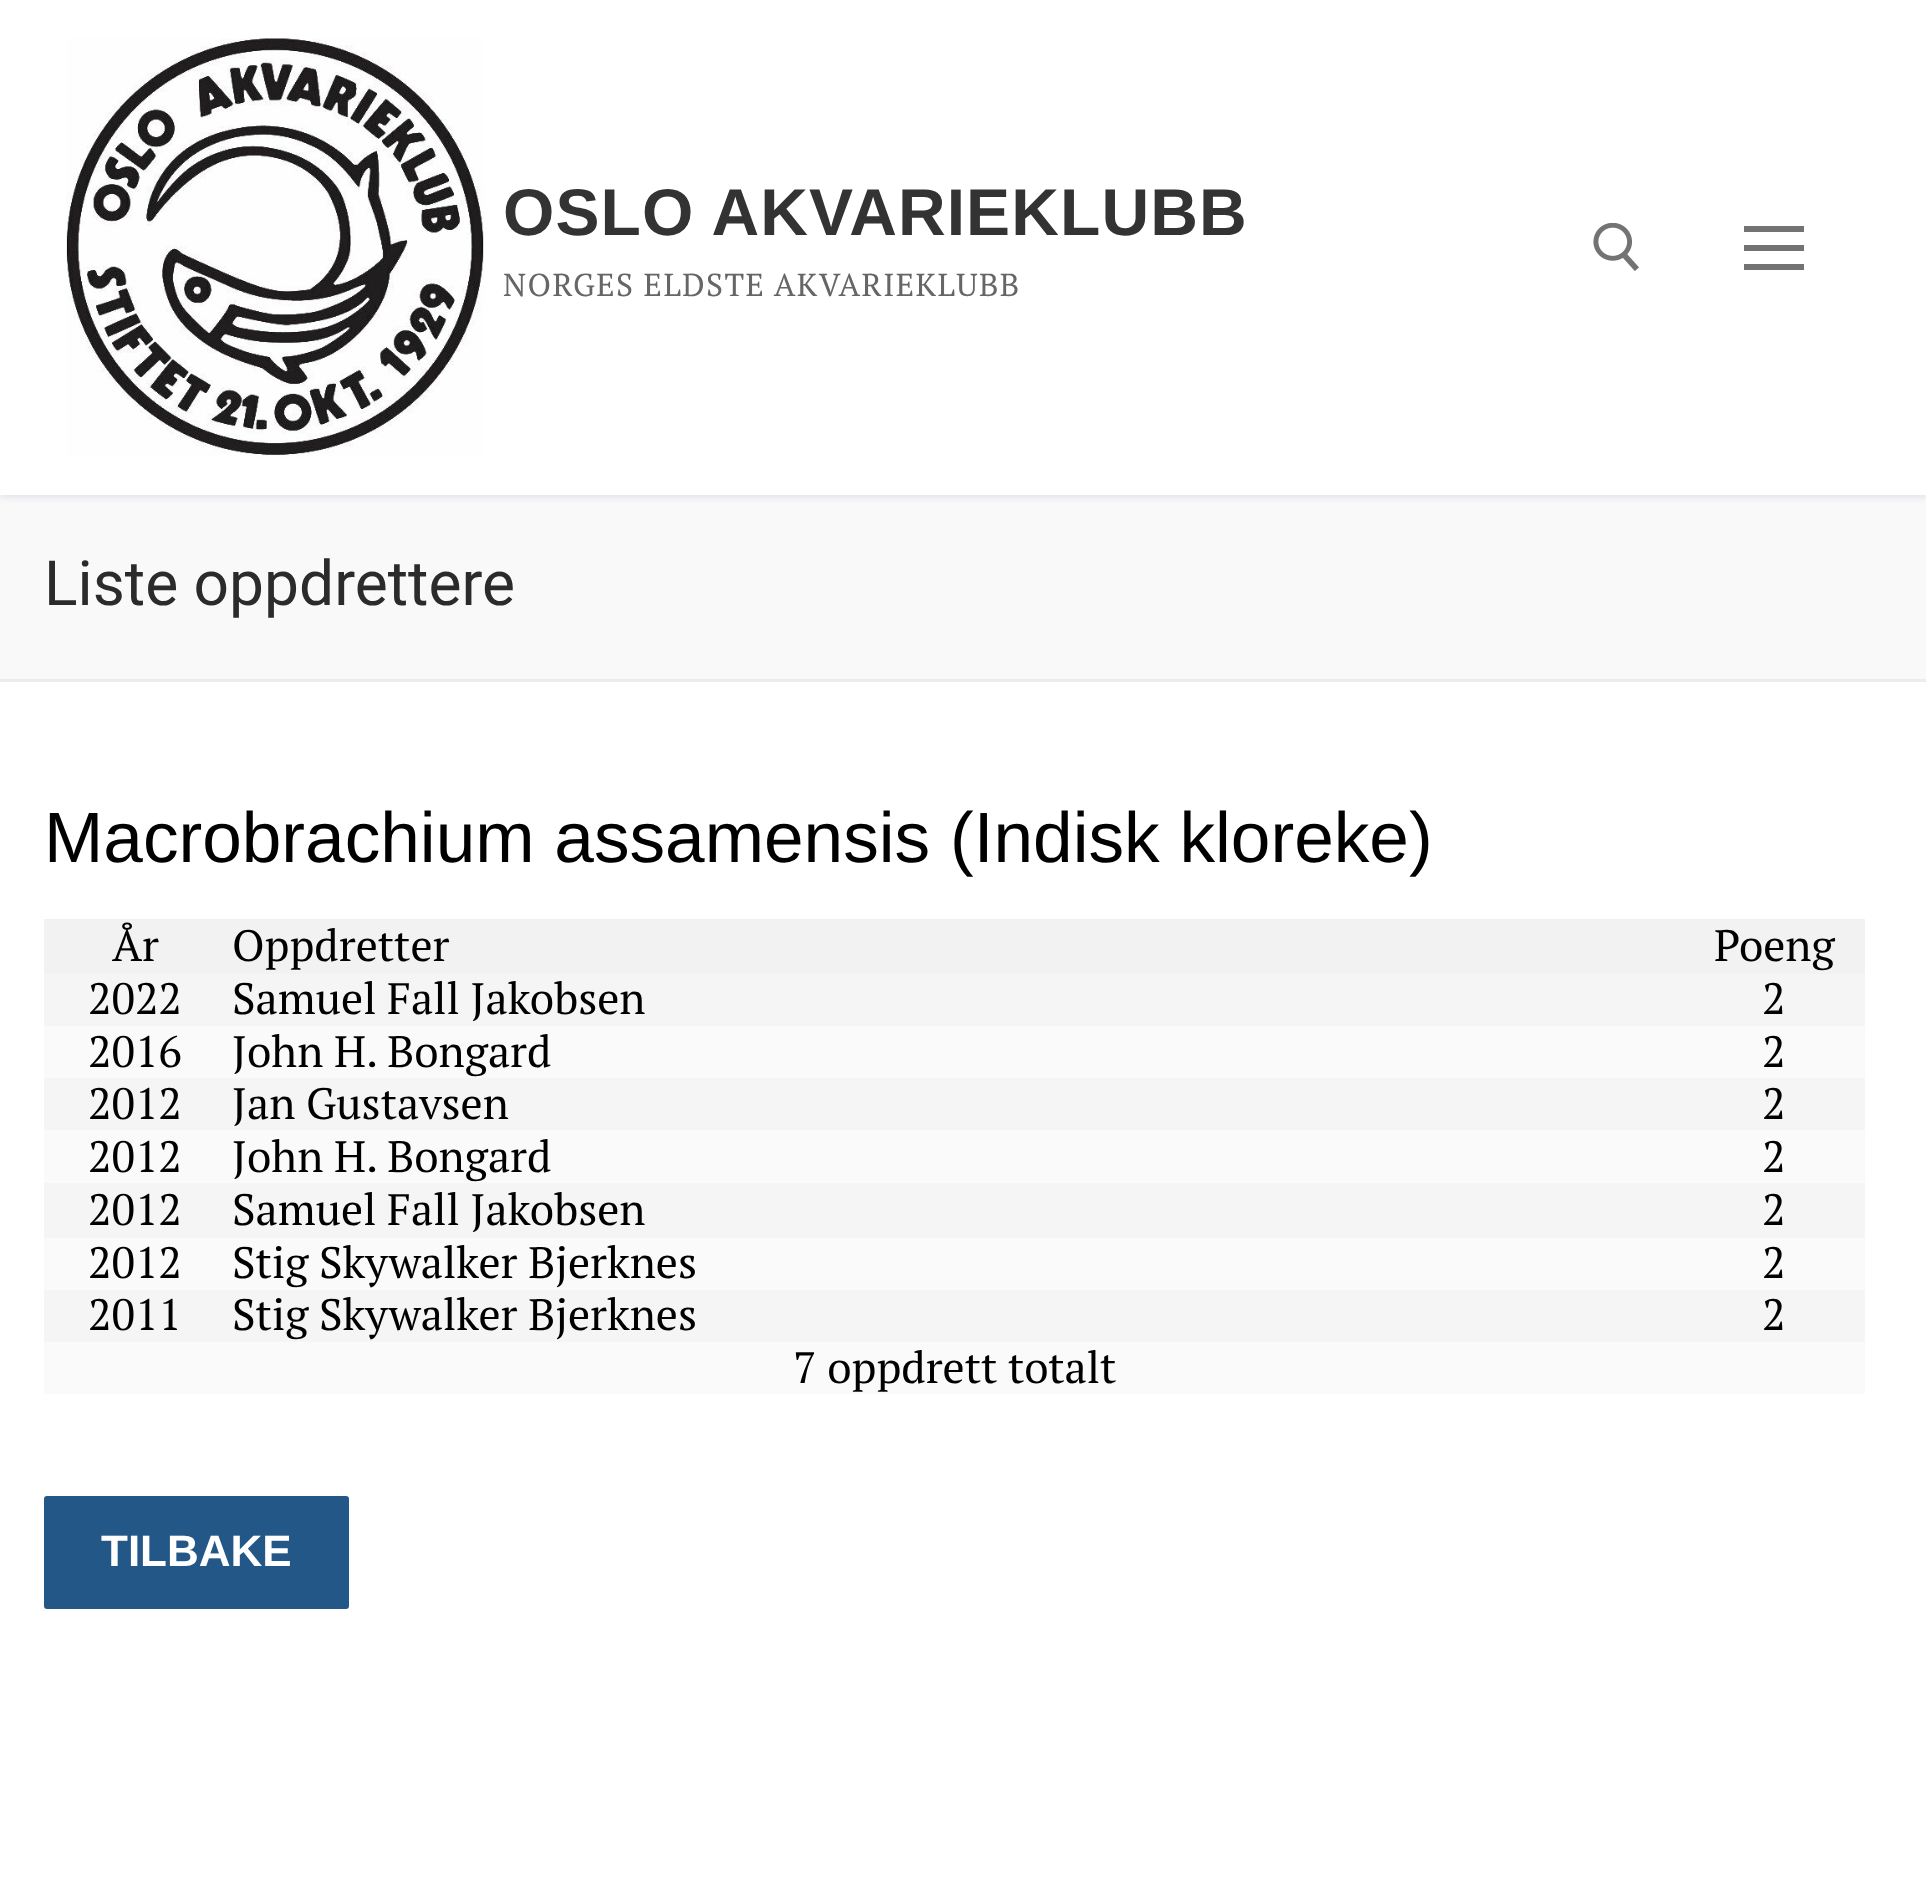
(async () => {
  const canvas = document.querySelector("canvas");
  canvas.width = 1926;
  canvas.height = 1885;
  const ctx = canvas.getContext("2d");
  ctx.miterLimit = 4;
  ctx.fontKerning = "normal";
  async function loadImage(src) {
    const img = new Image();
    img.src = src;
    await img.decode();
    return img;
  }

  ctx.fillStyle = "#ffffff";
  ctx.fillRect(0, 0, 1926, 1885);
  ctx.fillStyle = "#f9f9f9";
  ctx.fillRect(0, 495, 1926, 184);
  ctx.save();
  ctx.beginPath();
  ctx.rect(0, 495, 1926, 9);
  ctx.clip();
  ctx.fillStyle = "#e1e5ea";
  ctx.filter = "blur(3px)";
  ctx.beginPath();
  ctx.rect(0, 3, 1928, 495);
  ctx.fill();
  ctx.filter = "none";
  ctx.restore();
  ctx.drawImage(await loadImage("img/1.png"), 66, 38, 418, 419);
  ctx.drawImage(await loadImage("img/2.png"), 1593, 223, 46, 48);
  for (const [x, y, w, h, color] of [
    [1744, 245, 60, 6, "#737373"],
    [1744, 226, 60, 6, "#737373"],
    [1744, 264, 60, 6, "#737373"],
    [0, 679, 1926, 3, "#eaecee"],
    [44, 919, 1821, 55, "#f2f2f2"],
    [44, 974, 1821, 52, "#f5f5f5"],
    [44, 1026, 1821, 52, "#fafafa"],
    [44, 1078, 1821, 52, "#f5f5f5"],
    [44, 1130, 1821, 53, "#fafafa"],
    [44, 1183, 1821, 55, "#f5f5f5"],
    [44, 1238, 1821, 52, "#fafafa"],
    [44, 1290, 1821, 52, "#f5f5f5"],
    [44, 1342, 1821, 52, "#fafafa"],
  ]) {
    ctx.fillStyle = color;
    ctx.fillRect(x, y, w, h);
  }
  ctx.fillStyle = "#235787";
  ctx.beginPath();
  ctx.roundRect(44, 1496, 305, 113, 3);
  ctx.fill();
  ctx.letterSpacing = "1.1px";
  ctx.font = "bold 66px Liberation Sans";
  ctx.fillStyle = "#333333";
  ctx.fillText("OSLO AKVARIEKLUBB", 503, 235);
  ctx.letterSpacing = "1.4px";
  ctx.font = "31.7px PT Serif";
  ctx.fillStyle = "#666666";
  ctx.fillText("NORGES ELDSTE AKVARIEKLUBB", 503, 296);
  ctx.letterSpacing = "0px";
  ctx.font = "62.25px Roboto";
  ctx.fillStyle = "#2b2b2b";
  ctx.fillText("Liste oppdrettere", 44, 605);
  ctx.font = "71.2px Liberation Sans";
  ctx.fillStyle = "#000000";
  ctx.fillText("Macrobrachium assamensis (Indisk kloreke)", 44, 862);
  ctx.font = "44px PT Serif";
  for (const [text, x, y] of [
    ["År", 112, 961],
    ["Oppdretter", 232, 961],
    ["Poeng", 1714, 961],
    ["2022", 88, 1014],
    ["Samuel Fall Jakobsen", 232, 1014],
    ["2", 1762, 1014],
    ["2016", 88, 1067],
    ["John H. Bongard", 232, 1067],
    ["2", 1762, 1067],
    ["2012", 88, 1119],
    ["Jan Gustavsen", 232, 1119],
    ["2", 1762, 1119],
    ["2012", 88, 1172],
    ["John H. Bongard", 232, 1172],
    ["2", 1762, 1172],
    ["2012", 88, 1225],
    ["Samuel Fall Jakobsen", 232, 1225],
    ["2", 1762, 1225],
    ["2012", 88, 1278],
    ["Stig Skywalker Bjerknes", 232, 1278],
    ["2", 1762, 1278],
    ["2011", 88, 1330],
    ["Stig Skywalker Bjerknes", 232, 1330],
    ["2", 1762, 1330],
    ["7 oppdrett totalt", 793, 1383],
  ]) {
    ctx.fillText(text, x, y);
  }
  ctx.font = "bold 44px Liberation Sans";
  ctx.fillStyle = "#ffffff";
  ctx.fillText("TILBAKE", 101, 1566);
})();
